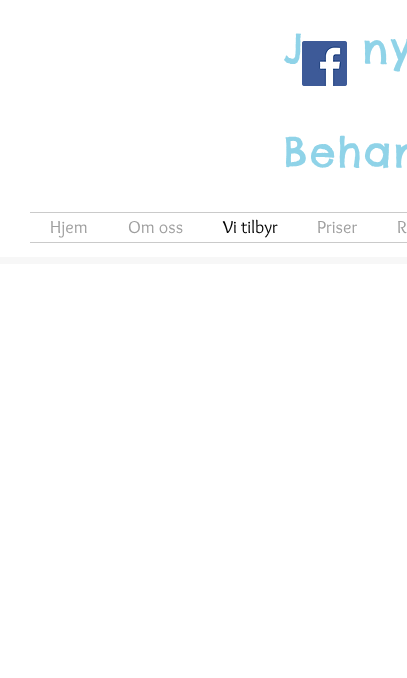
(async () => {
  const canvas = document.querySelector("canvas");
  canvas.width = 407;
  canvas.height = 678;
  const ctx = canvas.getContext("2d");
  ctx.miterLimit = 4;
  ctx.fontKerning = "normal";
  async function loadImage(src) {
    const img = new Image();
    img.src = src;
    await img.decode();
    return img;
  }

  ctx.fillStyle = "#ffffff";
  ctx.fillRect(0, 0, 407, 678);
  for (const [x, y, w, h, color] of [
    [30, 212, 377, 1, "#cacaca"],
    [30, 242, 377, 1, "#cacaca"],
    [0, 257, 407, 7, "#f7f7f7"],
  ]) {
    ctx.fillStyle = color;
    ctx.fillRect(x, y, w, h);
  }
  ctx.drawImage(await loadImage("img/1.png"), 302, 41, 45, 45);
  ctx.letterSpacing = "2px";
  ctx.font = "41px Chelsea Market";
  ctx.fillStyle = "#8fd3e8";
  for (const [text, x, y] of [
    ["J", 284, 63],
    ["ny", 362, 63],
    ["Behan", 283, 167],
  ]) {
    ctx.fillText(text, x, y);
  }
  ctx.letterSpacing = "0px";
  ctx.font = "18px Overlock";
  ctx.fillStyle = "#9e9e9e";
  ctx.fillText("Hjem", 50, 233);
  ctx.fillText("Om oss", 128, 233);
  ctx.fillStyle = "#000000";
  ctx.fillText("Vi tilbyr", 223, 233);
  ctx.fillStyle = "#9e9e9e";
  ctx.fillText("Priser", 317, 233);
  ctx.fillText("R", 397, 233);
})();
